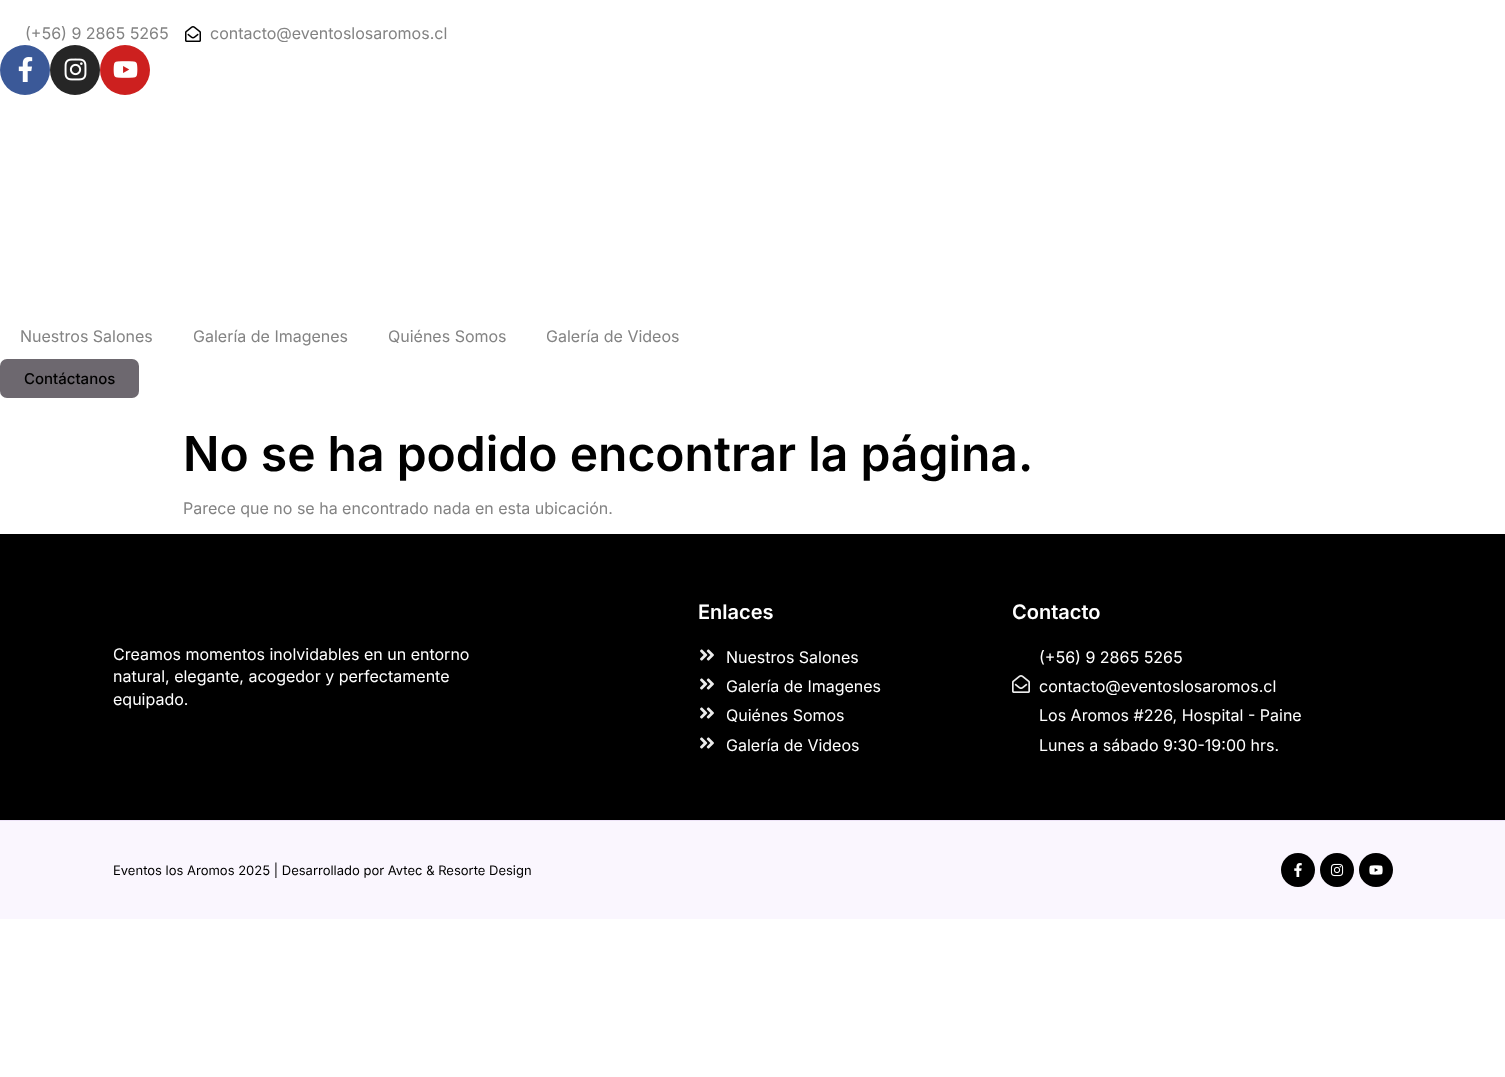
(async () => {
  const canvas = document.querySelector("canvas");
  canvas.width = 1505;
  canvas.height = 1077;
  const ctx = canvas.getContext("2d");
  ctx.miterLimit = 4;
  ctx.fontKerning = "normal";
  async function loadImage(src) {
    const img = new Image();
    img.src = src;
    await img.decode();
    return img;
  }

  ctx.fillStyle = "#ffffff";
  ctx.fillRect(0, 0, 1505, 1077);
  ctx.drawImage(await loadImage("img/1.png"), 185, 26, 16, 16);
  ctx.fillStyle = "#3b5998";
  ctx.beginPath();
  ctx.arc(25, 70, 25, 0, Math.PI * 2);
  ctx.fill();
  ctx.drawImage(await loadImage("img/2.png"), 18, 57, 15, 25);
  ctx.fillStyle = "#262626";
  ctx.beginPath();
  ctx.arc(75, 70, 25, 0, Math.PI * 2);
  ctx.fill();
  ctx.drawImage(await loadImage("img/3.png"), 64, 58, 23, 23);
  ctx.fillStyle = "#cd201f";
  ctx.beginPath();
  ctx.arc(125, 70, 25, 0, Math.PI * 2);
  ctx.fill();
  ctx.drawImage(await loadImage("img/4.png"), 113, 61, 25, 17);
  ctx.fillStyle = "#6d686f";
  ctx.beginPath();
  ctx.roundRect(0, 359, 139, 39, 7);
  ctx.fill();
  ctx.fillStyle = "#000000";
  ctx.fillRect(0, 534, 1505, 286);
  ctx.fillStyle = "#ede3f7";
  ctx.fillRect(0, 820, 1505, 1);
  ctx.drawImage(await loadImage("img/5.png"), 700, 649, 14, 12);
  ctx.drawImage(await loadImage("img/5.png"), 700, 678, 14, 12);
  ctx.drawImage(await loadImage("img/5.png"), 700, 707, 14, 12);
  ctx.drawImage(await loadImage("img/5.png"), 700, 737, 14, 12);
  ctx.drawImage(await loadImage("img/6.png"), 1012, 675, 18, 18);
  ctx.fillStyle = "#faf6fe";
  ctx.fillRect(0, 821, 1505, 98);
  ctx.fillStyle = "#000000";
  ctx.beginPath();
  ctx.arc(1298, 870, 17, 0, Math.PI * 2);
  ctx.fill();
  ctx.drawImage(await loadImage("img/7.png"), 1294, 863, 8, 14);
  ctx.beginPath();
  ctx.arc(1337, 870, 17, 0, Math.PI * 2);
  ctx.fill();
  ctx.drawImage(await loadImage("img/8.png"), 1330, 863, 14, 14);
  ctx.beginPath();
  ctx.arc(1376, 870, 17, 0, Math.PI * 2);
  ctx.fill();
  ctx.drawImage(await loadImage("img/9.png"), 1369, 865, 14, 10);
  ctx.font = "16px Inter";
  ctx.fillStyle = "#838383";
  for (const [text, x, y] of [
    ["(+56) 9 2865 5265", 25, 39],
    ["contacto@eventoslosaromos.cl", 210, 39],
    ["Nuestros Salones", 20, 342],
    ["Galería de Imagenes", 193, 342],
    ["Quiénes Somos", 388, 342],
    ["Galería de Videos", 546, 342],
  ]) {
    ctx.fillText(text, x, y);
  }
  ctx.font = "500 15px Inter";
  ctx.fillStyle = "#000000";
  ctx.fillText("Contáctanos", 24, 384);
  ctx.font = "600 48px Inter";
  ctx.fillText("No se ha podido encontrar la página.", 183, 471);
  ctx.font = "16px Inter";
  ctx.fillStyle = "#838383";
  ctx.fillText("Parece que no se ha encontrado nada en esta ubicación.", 183, 514);
  ctx.fillStyle = "#ffffff";
  for (const [text, x, y] of [
    ["Creamos momentos inolvidables en un entorno", 113, 660],
    ["natural, elegante, acogedor y perfectamente", 113, 682],
    ["equipado.", 113, 705],
  ]) {
    ctx.fillText(text, x, y);
  }
  ctx.font = "600 20px Inter";
  ctx.fillText("Enlaces", 698, 619);
  ctx.font = "16px Inter";
  for (const [text, x, y] of [
    ["Nuestros Salones", 726, 663],
    ["Galería de Imagenes", 726, 692],
    ["Quiénes Somos", 726, 721],
    ["Galería de Videos", 726, 751],
  ]) {
    ctx.fillText(text, x, y);
  }
  ctx.font = "600 20px Inter";
  ctx.fillText("Contacto", 1012, 619);
  ctx.font = "16px Inter";
  for (const [text, x, y] of [
    ["(+56) 9 2865 5265", 1039, 663],
    ["contacto@eventoslosaromos.cl", 1039, 692],
    ["Los Aromos #226, Hospital - Paine", 1039, 721],
    ["Lunes a sábado 9:30-19:00 hrs.", 1039, 751],
  ]) {
    ctx.fillText(text, x, y);
  }
  ctx.font = "13px Inter";
  ctx.fillStyle = "#000000";
  ctx.fillText("Eventos los Aromos 2025 | Desarrollado por Avtec & Resorte Design", 113, 875);
})();
